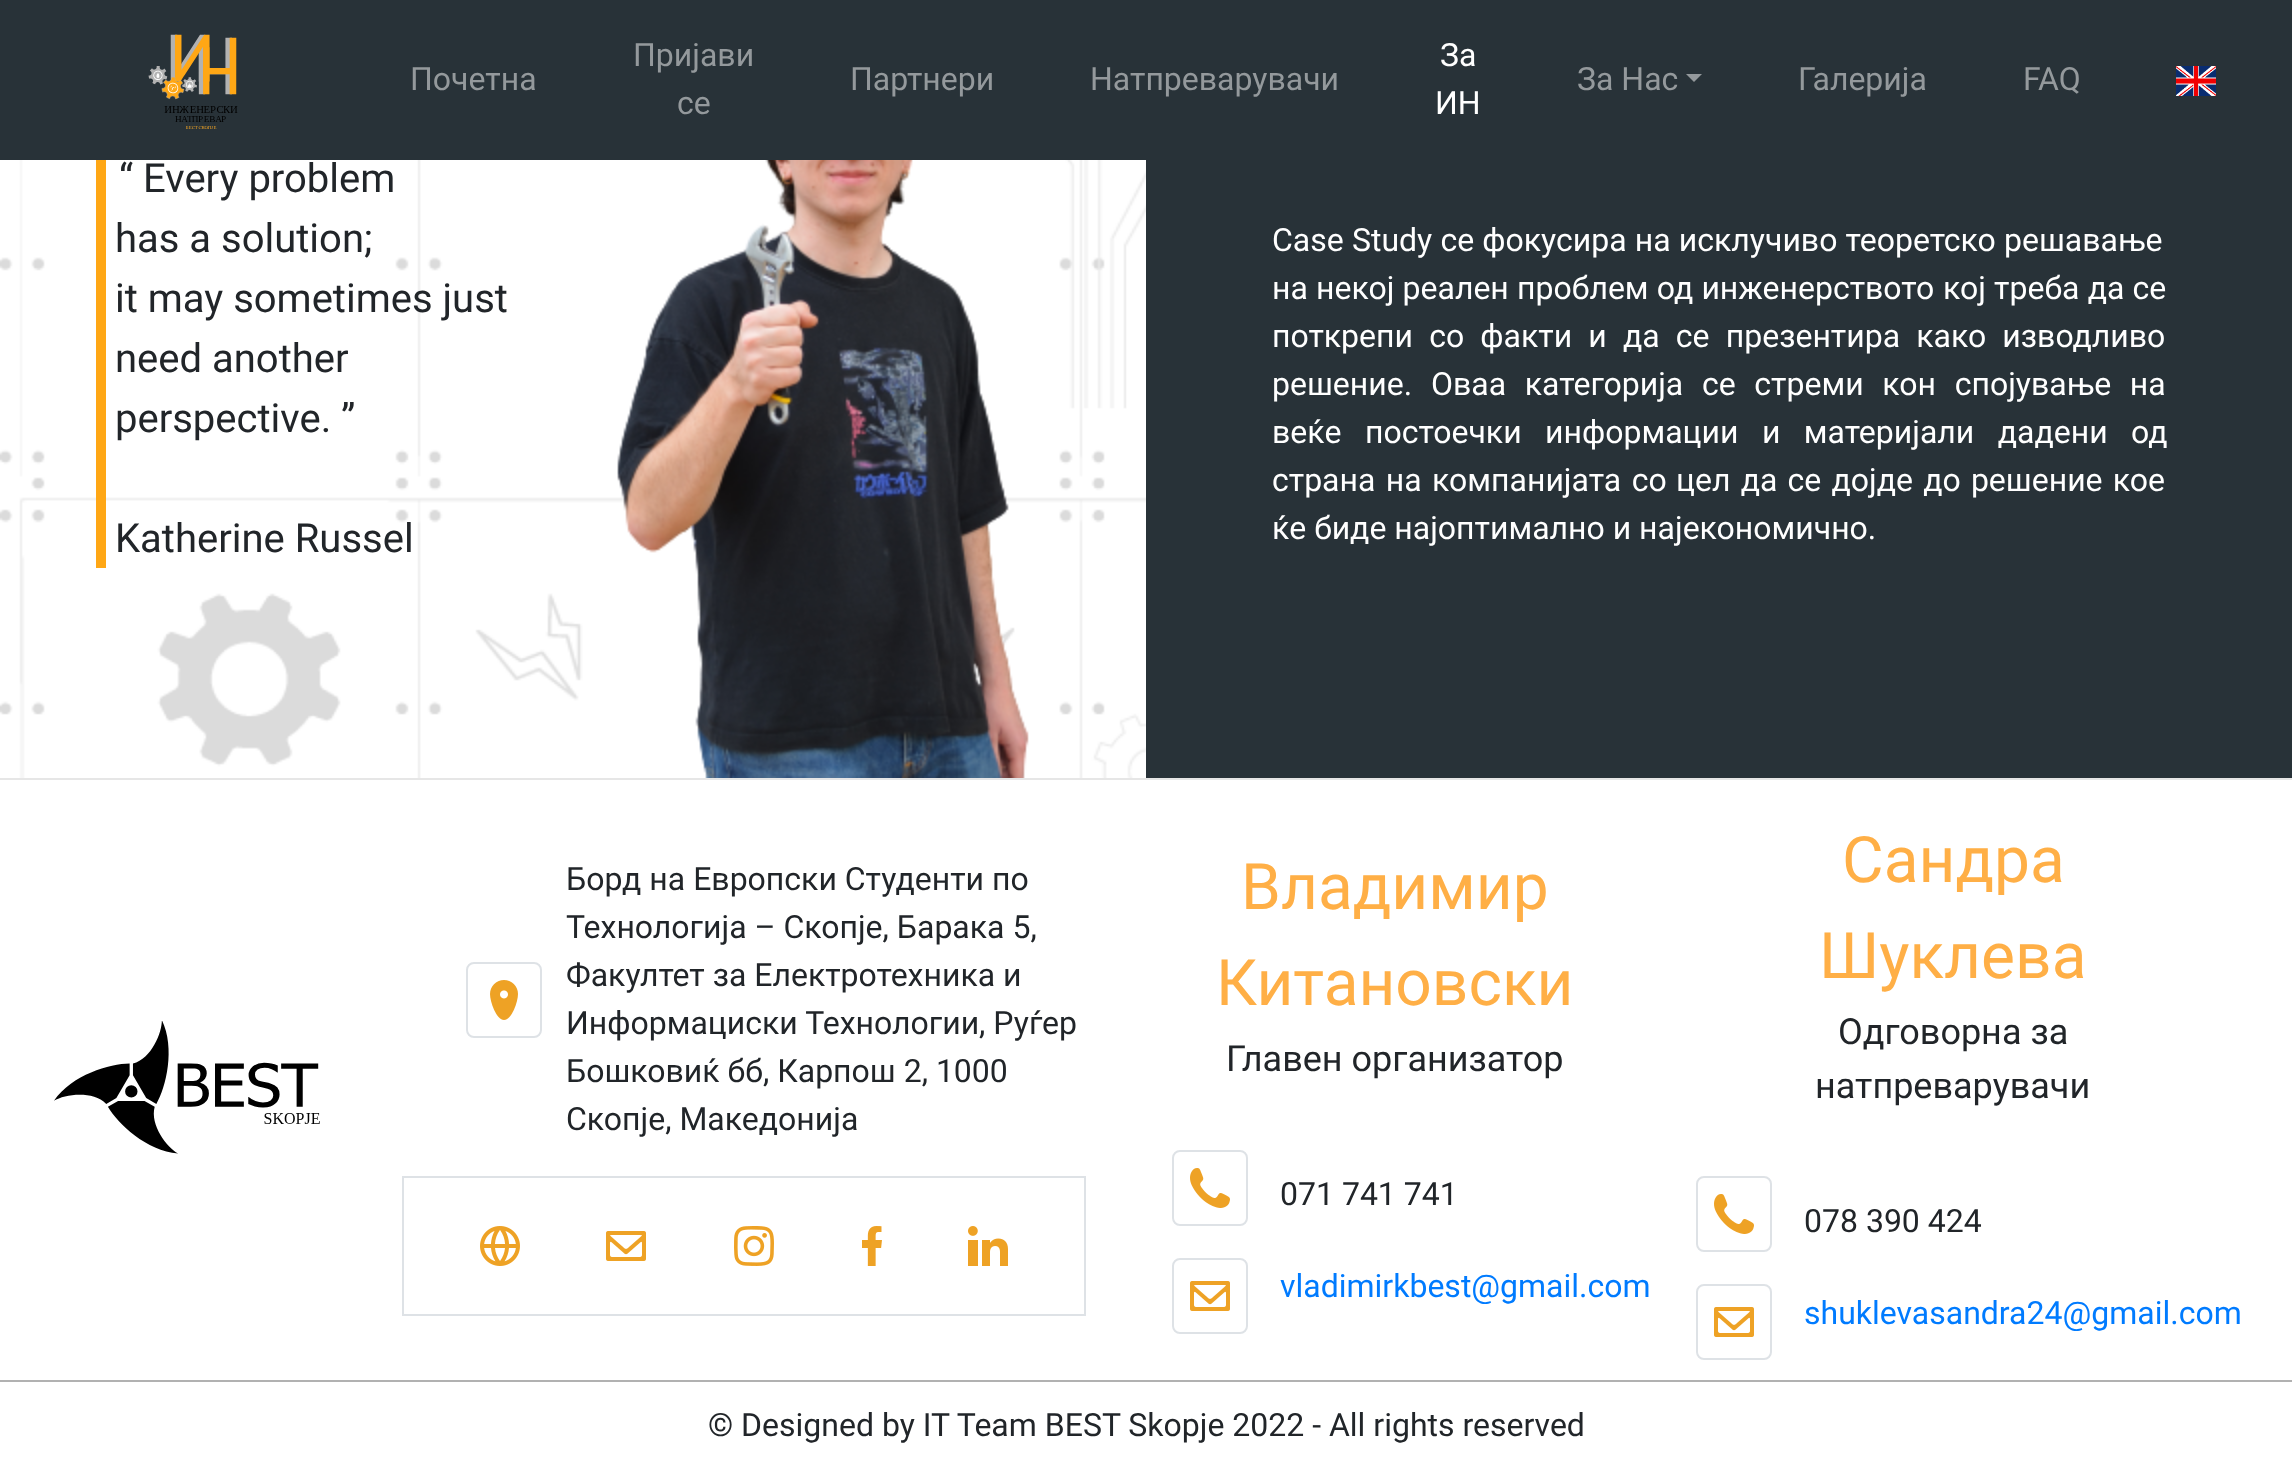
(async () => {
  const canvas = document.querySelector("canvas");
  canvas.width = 2292;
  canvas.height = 1480;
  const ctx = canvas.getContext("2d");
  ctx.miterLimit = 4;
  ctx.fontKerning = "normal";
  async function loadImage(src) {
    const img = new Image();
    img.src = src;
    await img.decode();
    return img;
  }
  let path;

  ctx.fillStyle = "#ffffff";
  ctx.fillRect(0, 0, 2292, 1480);
  ctx.drawImage(await loadImage("img/1.png"), 0, 160, 1146, 618);
  ctx.fillStyle = "#283238";
  ctx.fillRect(0, 0, 2292, 160);
  ctx.drawImage(await loadImage("img/2.png"), 148, 34, 90, 95);
  ctx.fillStyle = "#94999c";
  path = new Path2D("M1686 74H1702L1694 82Z");
  ctx.fill(path);
  ctx.fillStyle = "#ffffff";
  ctx.fillRect(2176, 66, 40, 30);
  ctx.drawImage(await loadImage("img/3.png"), 2176, 66, 40, 30);
  ctx.fillStyle = "#ffa715";
  ctx.fillRect(96, 160, 10, 408);
  ctx.drawImage(await loadImage("img/4.png"), 617, 160, 412, 618);
  ctx.fillStyle = "#283238";
  ctx.fillRect(1146, 160, 1146, 618);
  ctx.fillStyle = "#e6e6e6";
  ctx.fillRect(0, 778, 2292, 2);
  ctx.drawImage(await loadImage("img/5.png"), 54, 1021, 266, 133);
  ctx.beginPath();
  ctx.roundRect(467, 963, 74, 74, 7);
  ctx.strokeStyle = "#dee2e6";
  ctx.lineWidth = 2;
  ctx.stroke();
  ctx.drawImage(await loadImage("img/6.png"), 490, 980, 28, 40);
  ctx.strokeRect(403, 1177, 682, 138);
  ctx.drawImage(await loadImage("img/7.png"), 480, 1226, 40, 40);
  ctx.drawImage(await loadImage("img/8.png"), 606, 1231, 40, 30);
  ctx.drawImage(await loadImage("img/9.png"), 734, 1226, 40, 40);
  ctx.drawImage(await loadImage("img/10.png"), 862, 1226, 20, 40);
  ctx.drawImage(await loadImage("img/11.png"), 968, 1226, 40, 40);
  ctx.beginPath();
  ctx.roundRect(1173, 1151, 74, 74, 7);
  ctx.stroke();
  ctx.drawImage(await loadImage("img/12.png"), 1190, 1168, 40, 40);
  ctx.beginPath();
  ctx.roundRect(1173, 1259, 74, 74, 7);
  ctx.stroke();
  ctx.drawImage(await loadImage("img/8.png"), 1190, 1281, 40, 30);
  ctx.beginPath();
  ctx.roundRect(1697, 1177, 74, 74, 7);
  ctx.stroke();
  ctx.drawImage(await loadImage("img/12.png"), 1714, 1194, 40, 40);
  ctx.beginPath();
  ctx.roundRect(1697, 1285, 74, 74, 7);
  ctx.stroke();
  ctx.drawImage(await loadImage("img/8.png"), 1714, 1307, 40, 30);
  ctx.fillStyle = "#b1b1b1";
  ctx.fillRect(0, 1380, 2292, 2);
  ctx.font = "32px Roboto";
  ctx.fillStyle = "#94999c";
  for (const [text, x, y] of [
    ["Почетна", 410, 90],
    ["Пријави", 633, 66],
    ["се", 677, 114],
    ["Партнери", 850, 90],
    ["Натпреварувачи", 1090, 90],
  ]) {
    ctx.fillText(text, x, y);
  }
  ctx.fillStyle = "#ffffff";
  ctx.fillText("За", 1440, 66);
  ctx.fillText("ИН", 1435, 114);
  ctx.fillStyle = "#94999c";
  for (const [text, x, y] of [
    ["За Нас", 1577, 90],
    ["Галерија", 1798, 90],
    ["FAQ", 2023, 90],
  ]) {
    ctx.fillText(text, x, y);
  }
  ctx.font = "40px Roboto";
  ctx.fillStyle = "#212529";
  for (const [text, x, y] of [
    ["“ Every problem", 119, 192],
    ["has a solution;", 115, 252],
    ["it may sometimes just", 115, 312],
    ["need another", 115, 372],
    ["perspective. ”", 115, 432],
    ["Katherine Russel", 115, 552],
  ]) {
    ctx.fillText(text, x, y);
  }
  ctx.wordSpacing = "0.25px";
  ctx.font = "32px Roboto";
  ctx.fillStyle = "#ffffff";
  for (const [text, x, y] of [
    ["Case Study се фокусира на исклучиво теоретско решавање", 1272, 251],
    ["на некој реален проблем од инженерството", 1272, 299],
    ["кој треба да се", 1943, 299],
  ]) {
    ctx.fillText(text, x, y);
  }
  ctx.wordSpacing = "8.25px";
  ctx.fillText("поткрепи со факти и да се презентира како изводливо", 1272, 347);
  ctx.wordSpacing = "0px";
  ctx.fillText("решение.", 1272, 395);
  ctx.wordSpacing = "10.75px";
  ctx.fillText("Оваа категорија се стреми кон спојување на", 1431, 395);
  ctx.wordSpacing = "0px";
  ctx.fillText("веќе", 1272, 443);
  ctx.wordSpacing = "15.5px";
  ctx.fillText("постоечки информации и материјали дадени од", 1365, 443);
  ctx.wordSpacing = "2.5px";
  ctx.fillText("страна на компанијата со", 1272, 491);
  ctx.wordSpacing = "2.25px";
  ctx.fillText("цел да се дојде до решение кое", 1676, 491);
  ctx.wordSpacing = "0px";
  ctx.fillText("ќе биде најоптимално и најекономичнo.", 1272, 539);
  ctx.fillStyle = "#212529";
  for (const [text, x, y] of [
    ["Борд на Европски Студенти по", 566, 890],
    ["Технологија – Скопје, Барака 5,", 566, 938],
    ["Факултет за Електротехника и", 566, 986],
    ["Информациски Технологии, Руѓер", 566, 1034],
    ["Бошковиќ бб, Карпош 2, 1000", 566, 1082],
    ["Скопје, Македонија", 566, 1130],
  ]) {
    ctx.fillText(text, x, y);
  }
  ctx.font = "64px Roboto";
  ctx.fillStyle = "#ffaf46";
  ctx.fillText("Владимир", 1241, 909);
  ctx.fillText("Китановски", 1216, 1005);
  ctx.font = "36px Roboto";
  ctx.fillStyle = "#212529";
  ctx.fillText("Главен организатор", 1226, 1071);
  ctx.font = "32px Roboto";
  ctx.fillText("071 741 741", 1280, 1205);
  ctx.fillStyle = "#007bff";
  ctx.fillText("vladimirkbest@gmail.com", 1280, 1297);
  ctx.font = "64px Roboto";
  ctx.fillStyle = "#ffaf46";
  ctx.fillText("Сандра", 1842, 882);
  ctx.fillText("Шуклева", 1819, 978);
  ctx.font = "36px Roboto";
  ctx.fillStyle = "#212529";
  ctx.fillText("Одговорна за", 1838, 1044);
  ctx.fillText("натпреварувачи", 1815, 1098);
  ctx.font = "32px Roboto";
  ctx.fillText("078 390 424", 1804, 1232);
  ctx.fillStyle = "#007bff";
  ctx.fillText("shuklevasandra24@gmail.com", 1804, 1324);
  ctx.fillStyle = "#212529";
  ctx.fillText("© Designed by IT Team BEST Skopje 2022 - All rights reserved", 708, 1436);
})();
